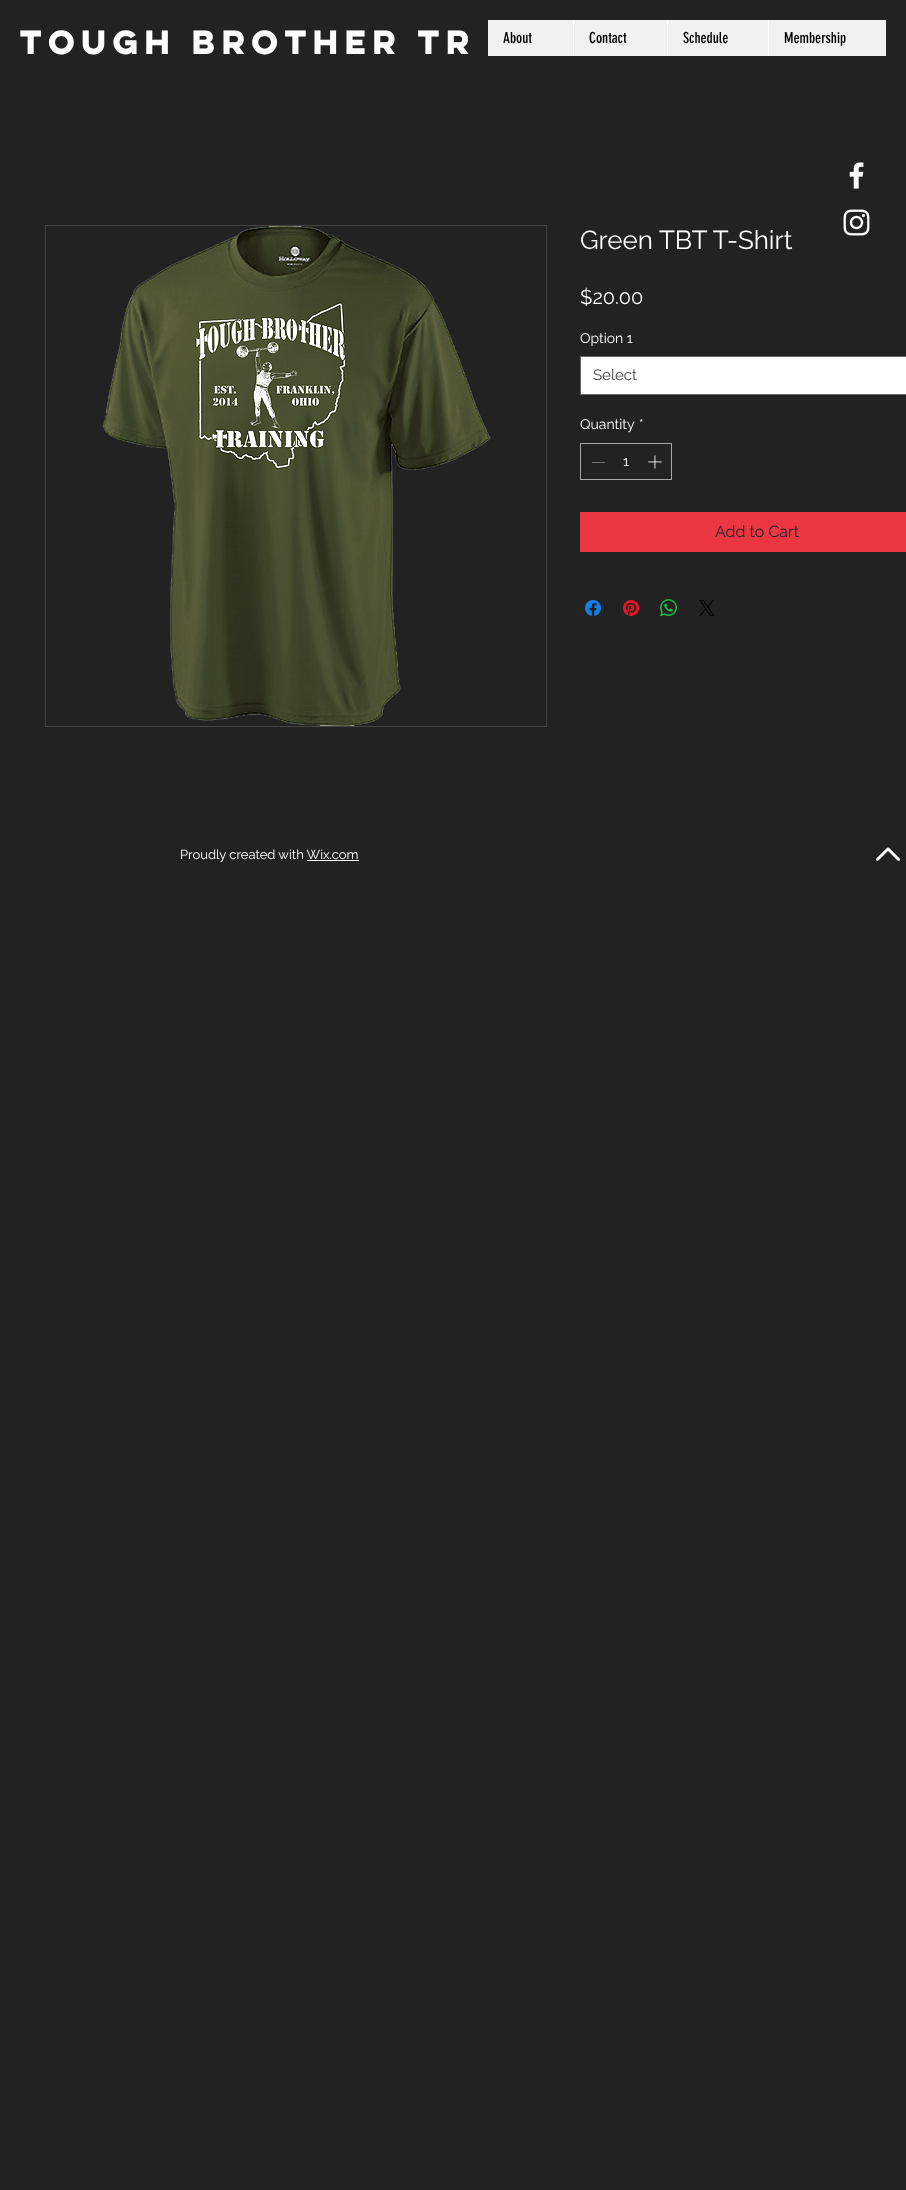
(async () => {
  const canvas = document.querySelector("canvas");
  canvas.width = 906;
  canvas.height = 2190;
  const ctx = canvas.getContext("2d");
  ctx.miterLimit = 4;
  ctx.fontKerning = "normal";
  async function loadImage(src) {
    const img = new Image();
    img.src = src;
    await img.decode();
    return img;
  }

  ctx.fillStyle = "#222222";
  ctx.fillRect(0, 0, 906, 2190);
  for (const [x, y, w, h, color] of [
    [488, 20, 398, 36, "#f1f1f1"],
    [573, 20, 1, 36, "#ffffff"],
    [667, 20, 1, 36, "#ffffff"],
    [768, 20, 1, 36, "#ffffff"],
  ]) {
    ctx.fillStyle = color;
    ctx.fillRect(x, y, w, h);
  }
  ctx.drawImage(await loadImage("img/1.png"), 849, 162, 15, 27);
  ctx.drawImage(await loadImage("img/2.png"), 843, 209, 27, 27);
  ctx.strokeStyle = "#444444";
  ctx.strokeRect(45.5, 225.5, 501, 501);
  ctx.drawImage(await loadImage("img/3.png"), 102, 226, 389, 500);
  ctx.beginPath();
  ctx.rect(580.5, 356.5, 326, 38);
  ctx.fill();
  ctx.strokeStyle = "#666666";
  ctx.stroke();
  ctx.strokeStyle = "#a7a7a7";
  ctx.strokeRect(580.5, 443.5, 91, 36);
  ctx.fillStyle = "#757575";
  ctx.fillRect(592, 462, 13, 1);
  ctx.drawImage(await loadImage("img/4.png"), 648, 455, 14, 14);
  ctx.fillStyle = "#ec3642";
  ctx.fillRect(580, 512, 326, 40);
  ctx.drawImage(await loadImage("img/5.png"), 585, 600, 16, 16);
  ctx.drawImage(await loadImage("img/6.png"), 623, 600, 16, 16);
  ctx.drawImage(await loadImage("img/7.png"), 660, 599, 17, 17);
  ctx.drawImage(await loadImage("img/8.png"), 699, 600, 16, 16);
  ctx.fillStyle = "#ffffff";
  ctx.fillRect(307, 860, 52, 1);
  ctx.drawImage(await loadImage("img/9.png"), 876, 847, 24, 14);
  ctx.font = "bold 30px 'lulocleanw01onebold'";
  ctx.fillText("Tough Brother tr", 20, 54);
  ctx.font = "15px 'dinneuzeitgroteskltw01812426'";
  ctx.fillStyle = "#000000";
  for (const [text, x, y] of [
    ["About", 503, 43],
    ["Contact", 589, 43],
    ["Schedule", 683, 43],
    ["Membership", 784, 43],
  ]) {
    ctx.fillText(text, x, y);
  }
  ctx.font = "26px Raleway";
  ctx.fillStyle = "#ffffff";
  ctx.fillText("Green TBT T-Shirt", 580, 249);
  ctx.font = "20px Raleway";
  ctx.fillText("$20.00", 580, 304);
  ctx.font = "14px Raleway";
  ctx.fillText("Option 1", 580, 343);
  ctx.font = "15px Raleway";
  ctx.fillStyle = "#444444";
  ctx.fillText("Select", 593, 380);
  ctx.font = "14px Raleway";
  ctx.fillStyle = "#ffffff";
  for (const [text, x, y] of [
    ["Quantity", 580, 429],
    ["*", 639, 429],
    ["1", 623, 466],
  ]) {
    ctx.fillText(text, x, y);
  }
  ctx.font = "16px Raleway";
  ctx.fillStyle = "#222222";
  ctx.fillText("Add to Cart", 715, 537);
  ctx.font = "13px Raleway";
  ctx.fillStyle = "#ffffff";
  ctx.fillText("Proudly created with Wix.com", 180, 859);
})();
